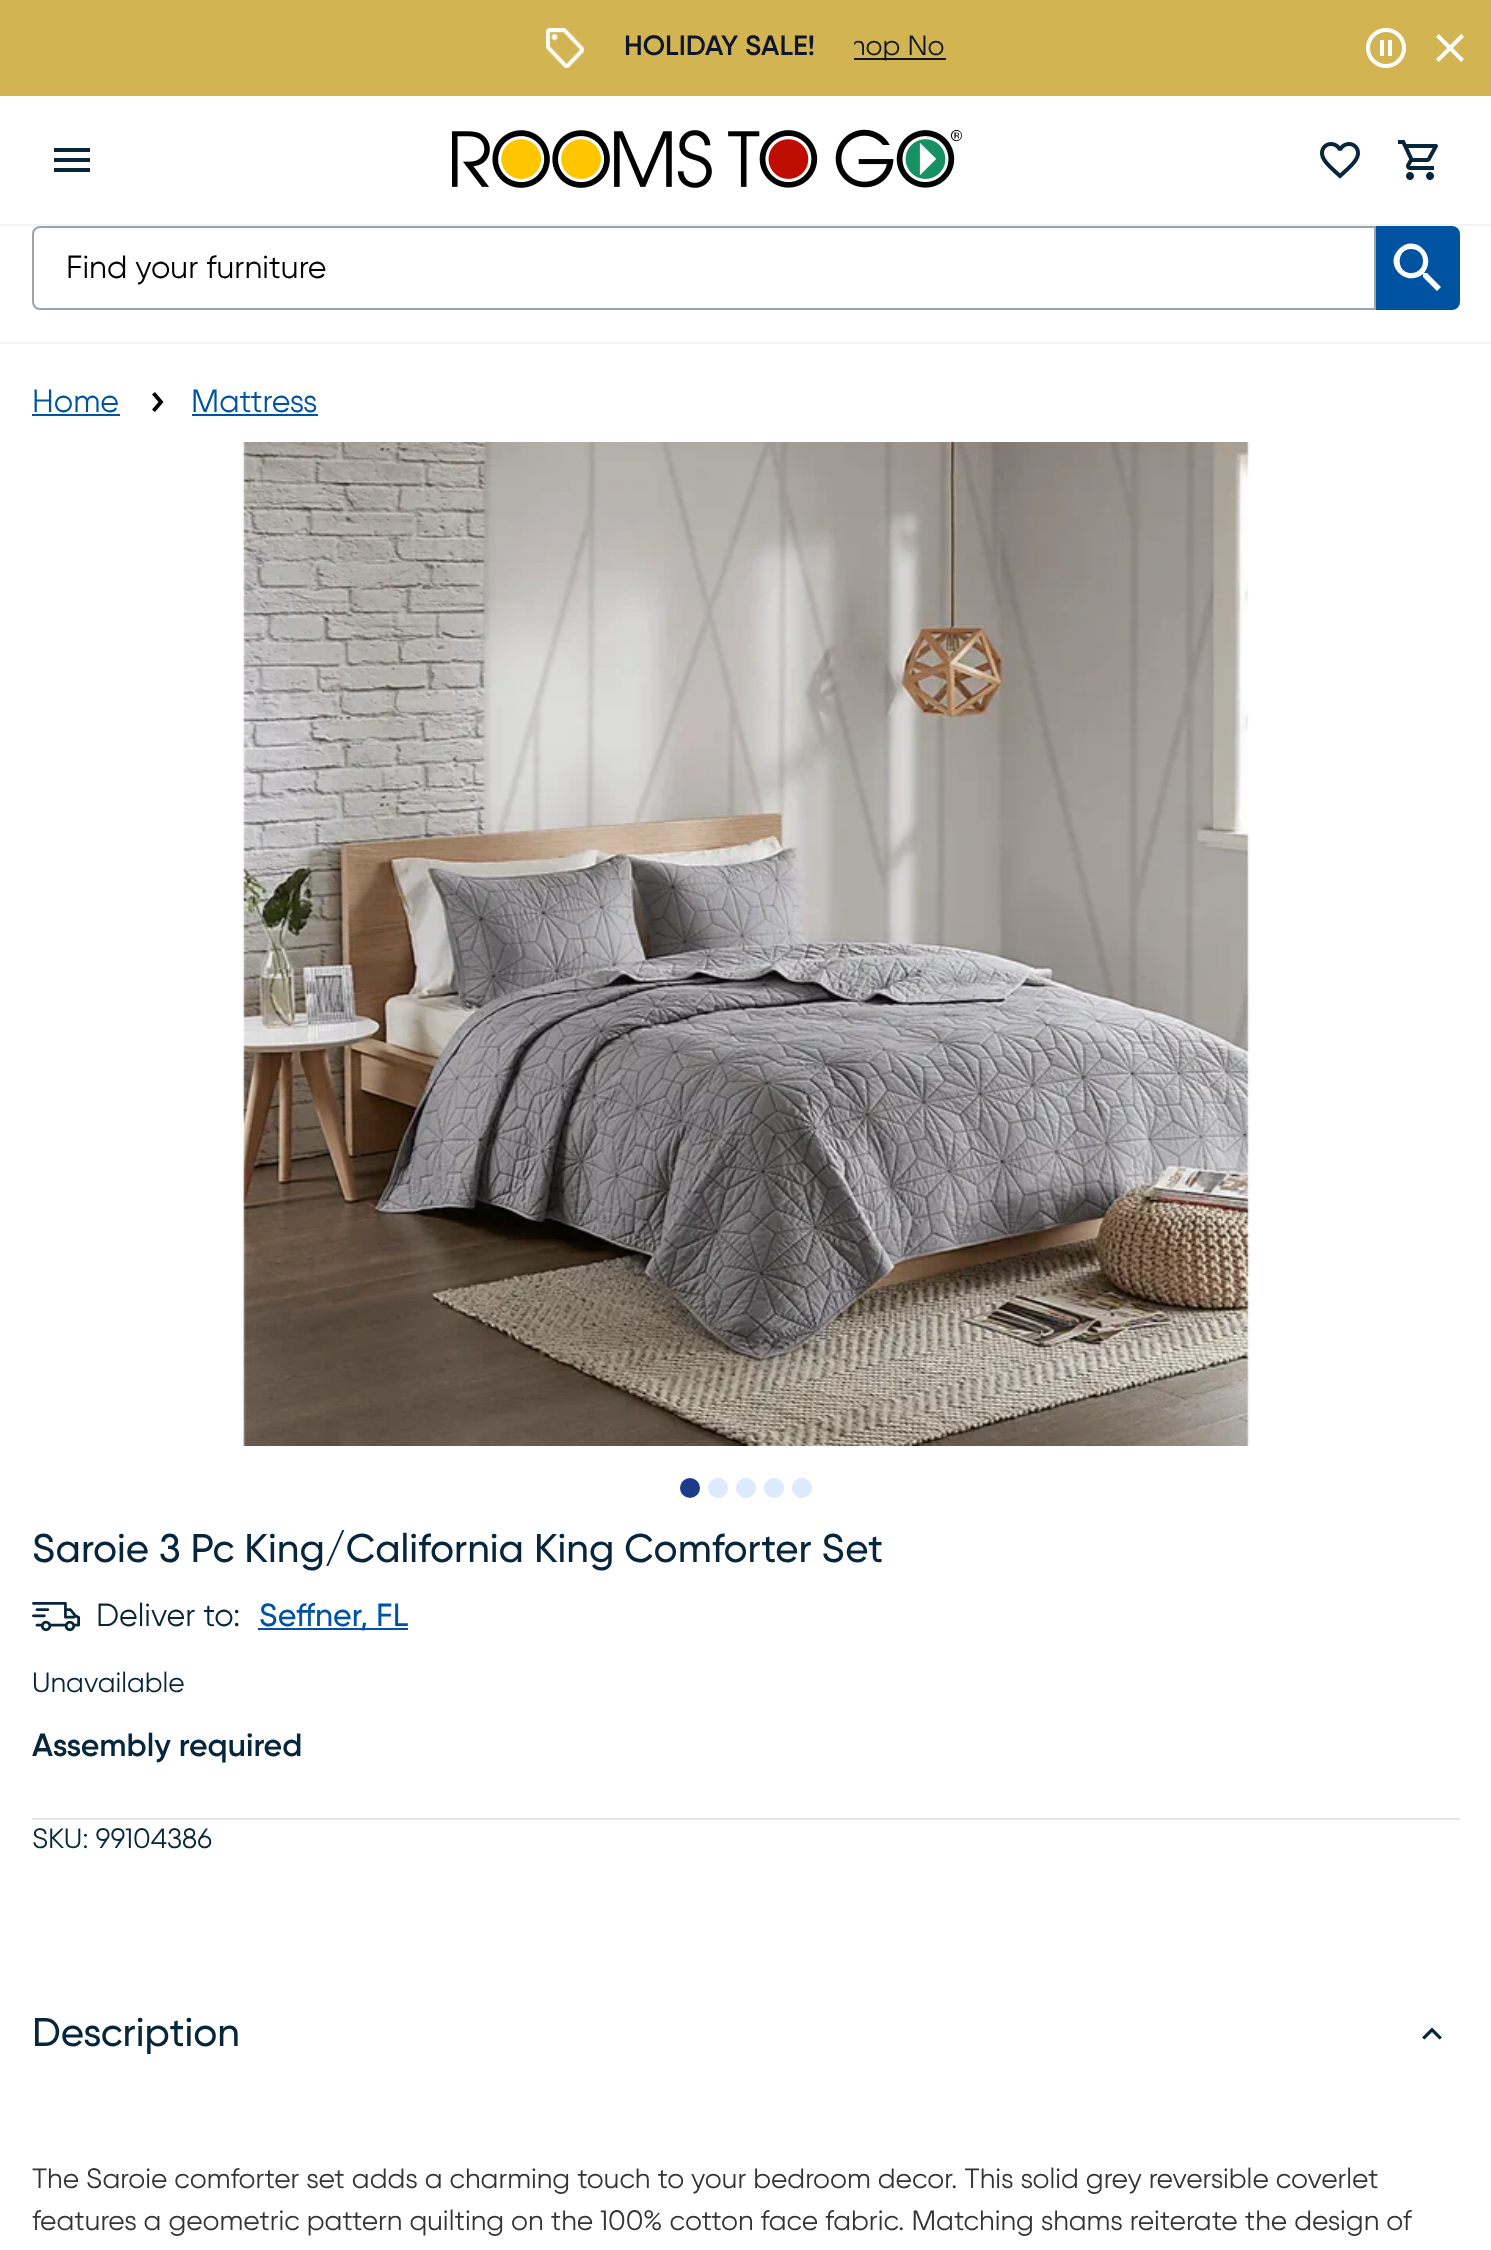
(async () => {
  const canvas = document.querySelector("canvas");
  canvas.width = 1491;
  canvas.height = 2250;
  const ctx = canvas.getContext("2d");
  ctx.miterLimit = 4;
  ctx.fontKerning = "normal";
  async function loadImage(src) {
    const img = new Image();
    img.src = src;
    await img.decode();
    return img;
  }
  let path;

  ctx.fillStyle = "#ffffff";
  ctx.fillRect(0, 0, 1491, 2250);
  ctx.fillStyle = "#f3f4f6";
  ctx.fillRect(0, 224, 1491, 2);
  ctx.fillStyle = "#d2b552";
  ctx.fillRect(0, 0, 1491, 96);
  ctx.drawImage(await loadImage("img/1.png"), 545, 28, 39, 40);
  ctx.fillStyle = "#0f152c";
  ctx.fillRect(854, 58, 92, 2);
  ctx.drawImage(await loadImage("img/2.png"), 1366, 28, 40, 40);
  ctx.drawImage(await loadImage("img/3.png"), 1436, 34, 28, 28);
  ctx.fillStyle = "#07263b";
  path = new Path2D("M54 172H90V168H54ZM54 162H90V158H54ZM54 148V152H90V148Z");
  ctx.fill(path);
  ctx.drawImage(await loadImage("img/4.png"), 452, 129, 510, 59);
  ctx.drawImage(await loadImage("img/5.png"), 1320, 142, 40, 37);
  ctx.drawImage(await loadImage("img/6.png"), 1398, 140, 40, 40);
  ctx.fillStyle = "#f3f4f6";
  ctx.fillRect(0, 342, 1491, 2);
  ctx.beginPath();
  ctx.roundRect(33, 227, 1342, 82, [7, 0, 0, 7]);
  ctx.strokeStyle = "#9ca3af";
  ctx.lineWidth = 2;
  ctx.stroke();
  ctx.fillStyle = "#0053a0";
  ctx.beginPath();
  ctx.roundRect(1376, 226, 84, 84, [0, 8, 8, 0]);
  ctx.fill();
  ctx.fillStyle = "#ffffff";
  path = new Path2D("M1427 273H1425H1424C1438 256 1415 233 1399 249C1383 265 1406 288 1423 274V275V277L1437 291L1441 287ZM1411 273C1396 273 1396 249 1411 249C1427 249 1427 273 1411 273Z");
  ctx.fill(path);
  ctx.fillStyle = "#0053a0";
  ctx.fillRect(32, 414, 88, 2);
  ctx.fillStyle = "#000000";
  path = new Path2D("M152 409.5L158.5 402L152 394.5L155 392L163.5 402L155 412Z");
  ctx.fill(path);
  ctx.fillStyle = "#0053a0";
  ctx.fillRect(192, 414, 126, 2);
  ctx.drawImage(await loadImage("img/7.png"), 243, 442, 1007, 1004);
  ctx.fillStyle = "#1e3a8a";
  ctx.beginPath();
  ctx.arc(690, 1488, 10, 0, Math.PI * 2);
  ctx.fill();
  ctx.fillStyle = "#dbeafe";
  ctx.beginPath();
  ctx.arc(718, 1488, 10, 0, Math.PI * 2);
  ctx.fill();
  ctx.beginPath();
  ctx.arc(746, 1488, 10, 0, Math.PI * 2);
  ctx.fill();
  ctx.beginPath();
  ctx.arc(774, 1488, 10, 0, Math.PI * 2);
  ctx.fill();
  ctx.beginPath();
  ctx.arc(802, 1488, 10, 0, Math.PI * 2);
  ctx.fill();
  ctx.fillStyle = "#e5e7eb";
  ctx.fillRect(32, 1818, 1428, 2);
  ctx.drawImage(await loadImage("img/8.png"), 32, 1602, 48, 30);
  ctx.fillStyle = "#0053a0";
  ctx.fillRect(258, 1628, 150, 2);
  ctx.fillStyle = "#07263b";
  path = new Path2D("M1439.5 2039.5L1442 2037.5L1432 2027.5L1422 2037.5L1424.5 2039.5L1432 2032Z");
  ctx.fill(path);
  ctx.font = "600 28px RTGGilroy";
  ctx.fillStyle = "#0f152c";
  ctx.fillText("HOLIDAY SALE!", 624, 55);
  ctx.save();
  ctx.beginPath();
  ctx.rect(854, 28, 92, 42);
  ctx.clip();
  ctx.font = "28px RTGGilroy";
  ctx.fillText("hop No", 850, 55);
  ctx.restore();
  ctx.font = "32px RTGGilroy";
  ctx.fillStyle = "#000000";
  ctx.fillText("Find your furniture", 66, 278);
  ctx.fillStyle = "#0053a0";
  ctx.fillText("Home", 32, 412);
  ctx.fillText("Mattress", 191, 412);
  ctx.font = "500 40px RTGGilroy";
  ctx.fillStyle = "#07263b";
  ctx.fillText("Saroie 3 Pc King/California King Comforter Set", 32, 1562);
  ctx.font = "32px RTGGilroy";
  ctx.fillText("Deliver to:", 96, 1626);
  ctx.font = "500 32px RTGGilroy";
  ctx.fillStyle = "#0053a0";
  ctx.fillText("Seffner, FL", 259, 1626);
  ctx.font = "28px RTGGilroy";
  ctx.fillStyle = "#07263b";
  ctx.fillText("Unavailable", 32, 1692);
  ctx.font = "600 32px RTGGilroy";
  ctx.fillText("Assembly required", 32, 1756);
  ctx.font = "28px RTGGilroy";
  ctx.fillText("SKU: 99104386", 32, 1848);
  ctx.font = "500 40px RTGGilroy";
  ctx.fillText("Description", 32, 2046);
  ctx.font = "28px RTGGilroy";
  ctx.fillStyle = "#333333";
  ctx.fillText("The Saroie comforter set adds a charming touch to your bedroom decor. This solid grey reversible coverlet", 32, 2188);
  ctx.fillText("features a geometric pattern quilting on the 100% cotton face fabric. Matching shams reiterate the design of", 32, 2230);
})();
